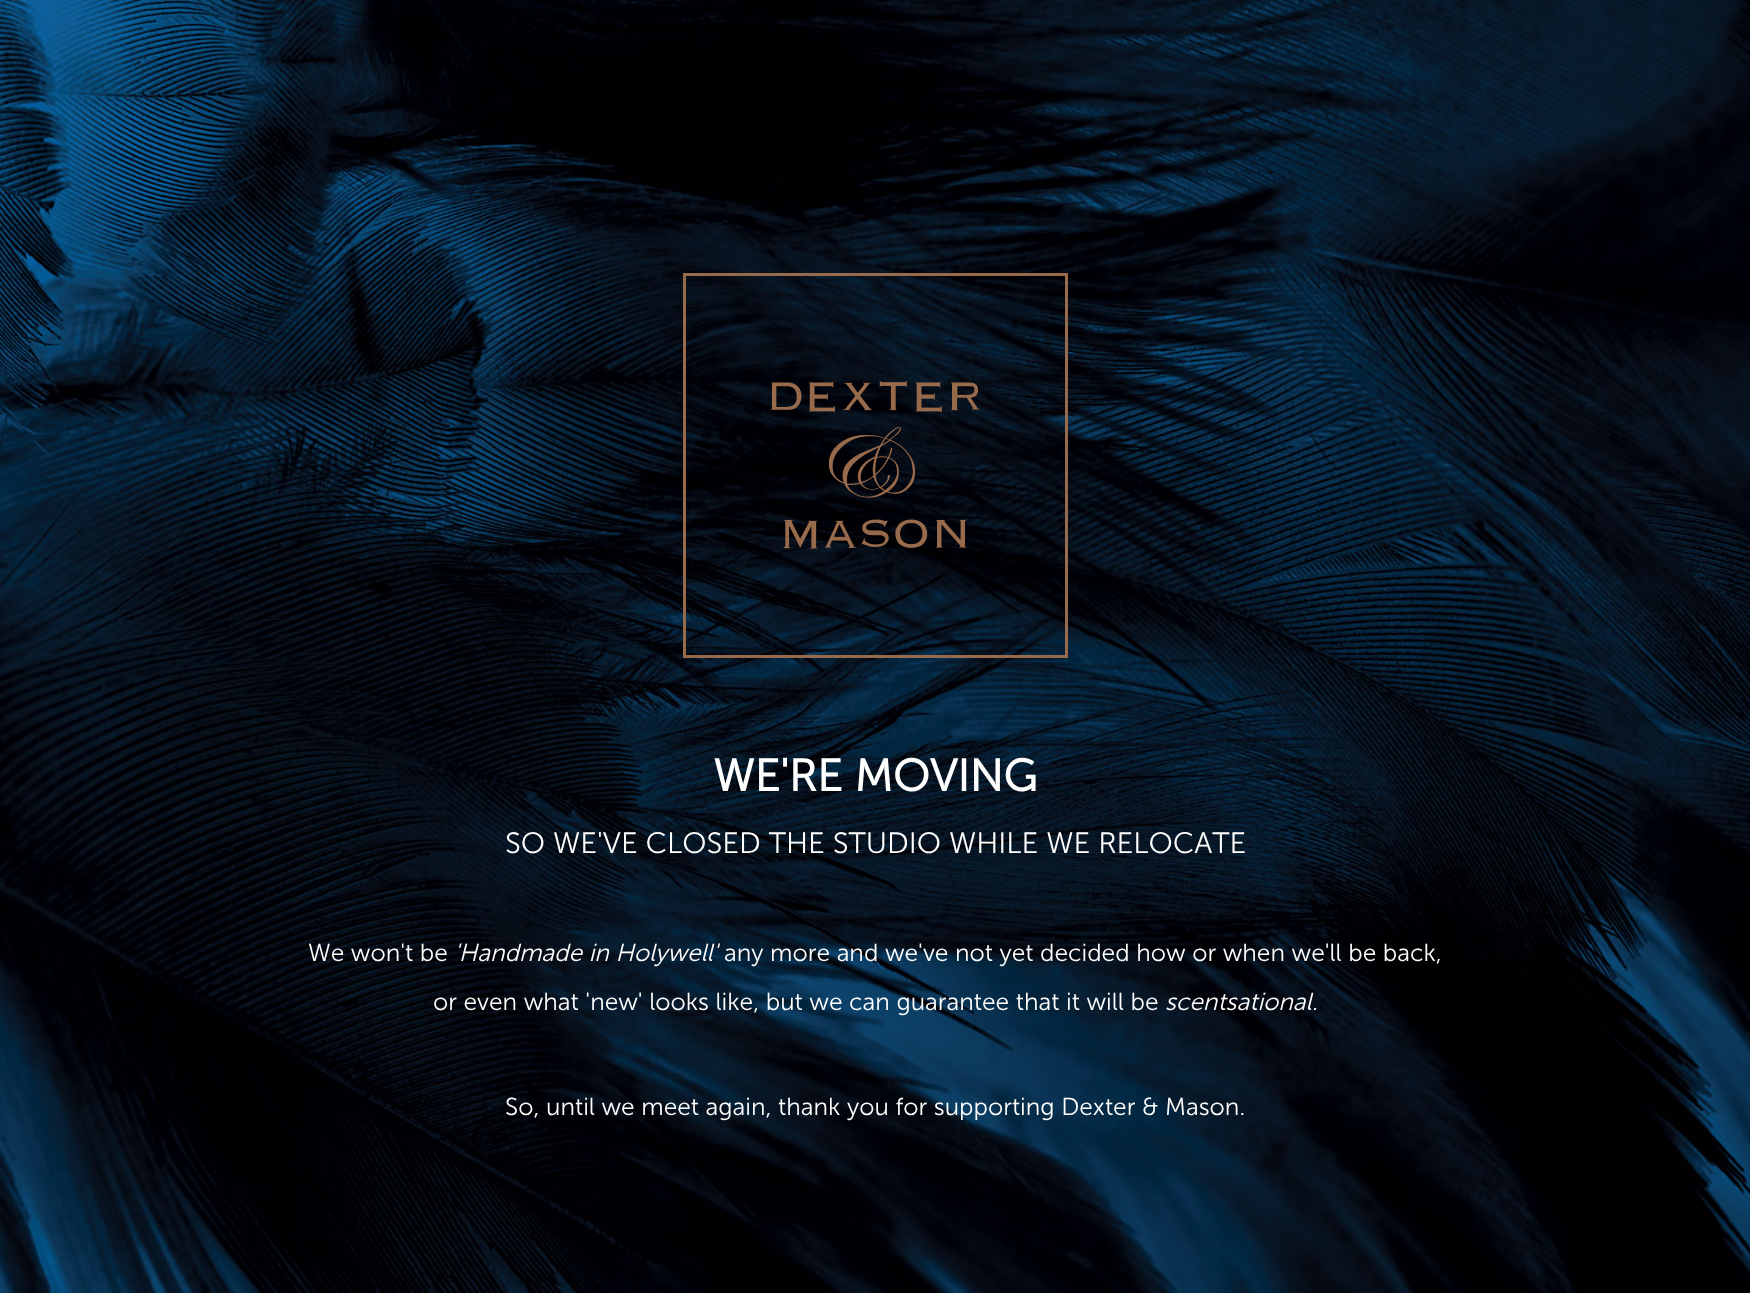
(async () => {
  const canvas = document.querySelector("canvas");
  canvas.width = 1750;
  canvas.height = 1293;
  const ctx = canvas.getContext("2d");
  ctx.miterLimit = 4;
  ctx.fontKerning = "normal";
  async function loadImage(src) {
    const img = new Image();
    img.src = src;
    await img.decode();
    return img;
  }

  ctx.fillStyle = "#ffffff";
  ctx.fillRect(0, 0, 1750, 1293);
  ctx.drawImage(await loadImage("img/1.png"), 0, 0, 1750, 1293);
  ctx.drawImage(await loadImage("img/2.png"), 683, 273, 385, 385);
  ctx.font = "bold 44.75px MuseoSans";
  ctx.fillText("WE'RE MOVING", 713, 791);
  ctx.font = "29.4px MuseoSans";
  ctx.fillText("SO WE'VE CLOSED THE STUDIO WHILE WE RELOCATE", 505, 853);
  ctx.font = "24.5px MuseoSans";
  ctx.fillText("We won't be", 308, 961);
  ctx.font = "italic 24.5px MuseoSans";
  ctx.fillText("'Handmade in Holywell'", 454, 961);
  ctx.font = "24.5px MuseoSans";
  ctx.fillText("any more and we've not yet decided how or when we'll be back,", 724, 961);
  ctx.fillText("or even what 'new' looks like, but we can guarantee that it will be", 433, 1010);
  ctx.font = "italic 24.5px MuseoSans";
  ctx.fillText("scentsational.", 1165, 1010);
  ctx.font = "24.5px MuseoSans";
  ctx.fillText("So, until we meet again, thank you for supporting Dexter & Mason.", 505, 1115);
})();
